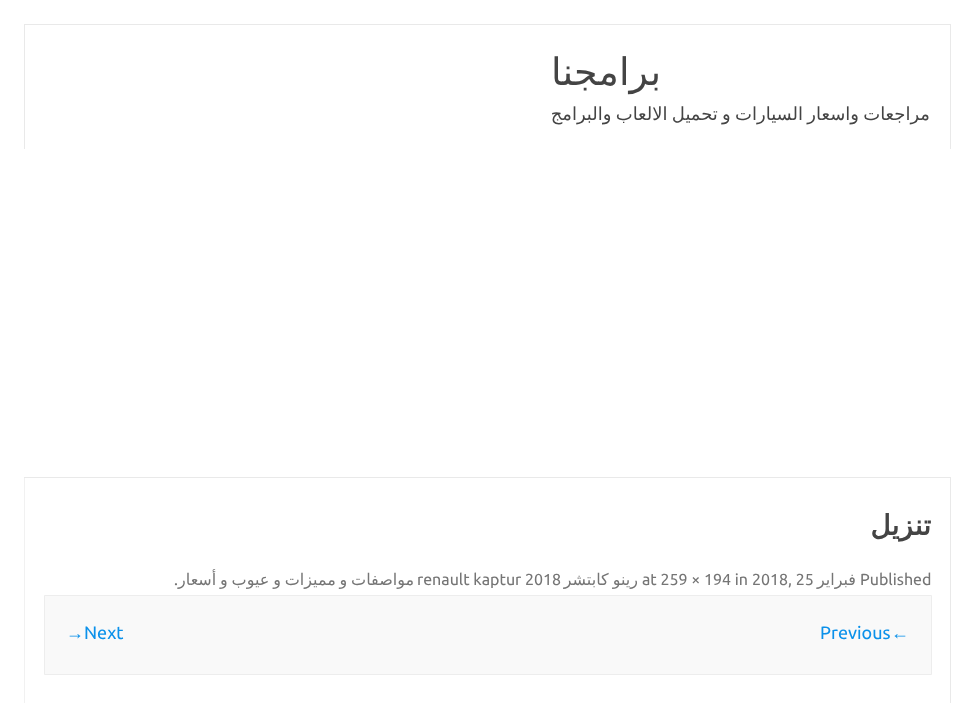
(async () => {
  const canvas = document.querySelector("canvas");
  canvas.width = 975;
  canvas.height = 703;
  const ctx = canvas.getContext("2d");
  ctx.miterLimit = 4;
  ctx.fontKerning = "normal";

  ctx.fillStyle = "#ffffff";
  ctx.fillRect(0, 0, 975, 703);
  for (const [x, y, w, h, color] of [
    [24, 24, 927, 1, "#e9e9e9"],
    [950, 24, 1, 125, "#e9e9e9"],
    [24, 24, 1, 125, "#e9e9e9"],
  ]) {
    ctx.fillStyle = color;
    ctx.fillRect(x, y, w, h);
  }
  ctx.strokeStyle = "#e9e9e9";
  ctx.strokeRect(24.5, 477.5, 926, 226);
  ctx.fillStyle = "#f1f1f1";
  ctx.fillRect(24, 478, 1, 225);
  ctx.fillStyle = "#f9f9f9";
  ctx.beginPath();
  ctx.rect(44.5, 595.5, 887, 79);
  ctx.fill();
  ctx.strokeStyle = "#ededed";
  ctx.stroke();
  ctx.direction = "rtl";
  ctx.font = "38px DejaVu Sans";
  ctx.fillStyle = "#444444";
  ctx.fillText("برامجنا", 661, 85);
  ctx.wordSpacing = "-1.5px";
  ctx.font = "18px DejaVu Sans";
  ctx.fillText("مراجعات واسعار السيارات و تحميل الالعاب والبرامج", 930, 120);
  ctx.wordSpacing = "0px";
  ctx.font = "bold 28px DejaVu Sans";
  ctx.fillText("تنزيل", 931, 535);
  ctx.direction = "ltr";
  ctx.font = "16px Ubuntu";
  ctx.fillStyle = "#757575";
  ctx.fillText("Published", 860, 585);
  ctx.direction = "rtl";
  ctx.font = "16px DejaVu Sans";
  ctx.fillText("فبراير", 856, 585);
  ctx.direction = "ltr";
  ctx.font = "16px Ubuntu";
  ctx.fillText("2018, 25", 752, 585);
  ctx.fillText("at 259 × 194 in", 642, 585);
  ctx.wordSpacing = "-1px";
  ctx.direction = "rtl";
  ctx.font = "16px DejaVu Sans";
  ctx.fillText("رينو كابتشر", 638, 585);
  ctx.wordSpacing = "-1.25px";
  ctx.fillText("مواصفات و مميزات و عيوب و أسعار", 414, 585);
  ctx.wordSpacing = "0px";
  ctx.direction = "ltr";
  ctx.font = "16px Ubuntu";
  ctx.fillText("renault kaptur 2018", 417, 585);
  ctx.fillText(".", 174, 585);
  ctx.font = "18px Liberation Sans";
  ctx.fillStyle = "#0b91ea";
  ctx.fillText("←", 891, 639);
  ctx.font = "18px Ubuntu";
  ctx.fillText("Previous", 820, 639);
  ctx.fillText("Next", 84, 639);
  ctx.font = "18px Liberation Sans";
  ctx.fillText("→", 66, 639);
})();
